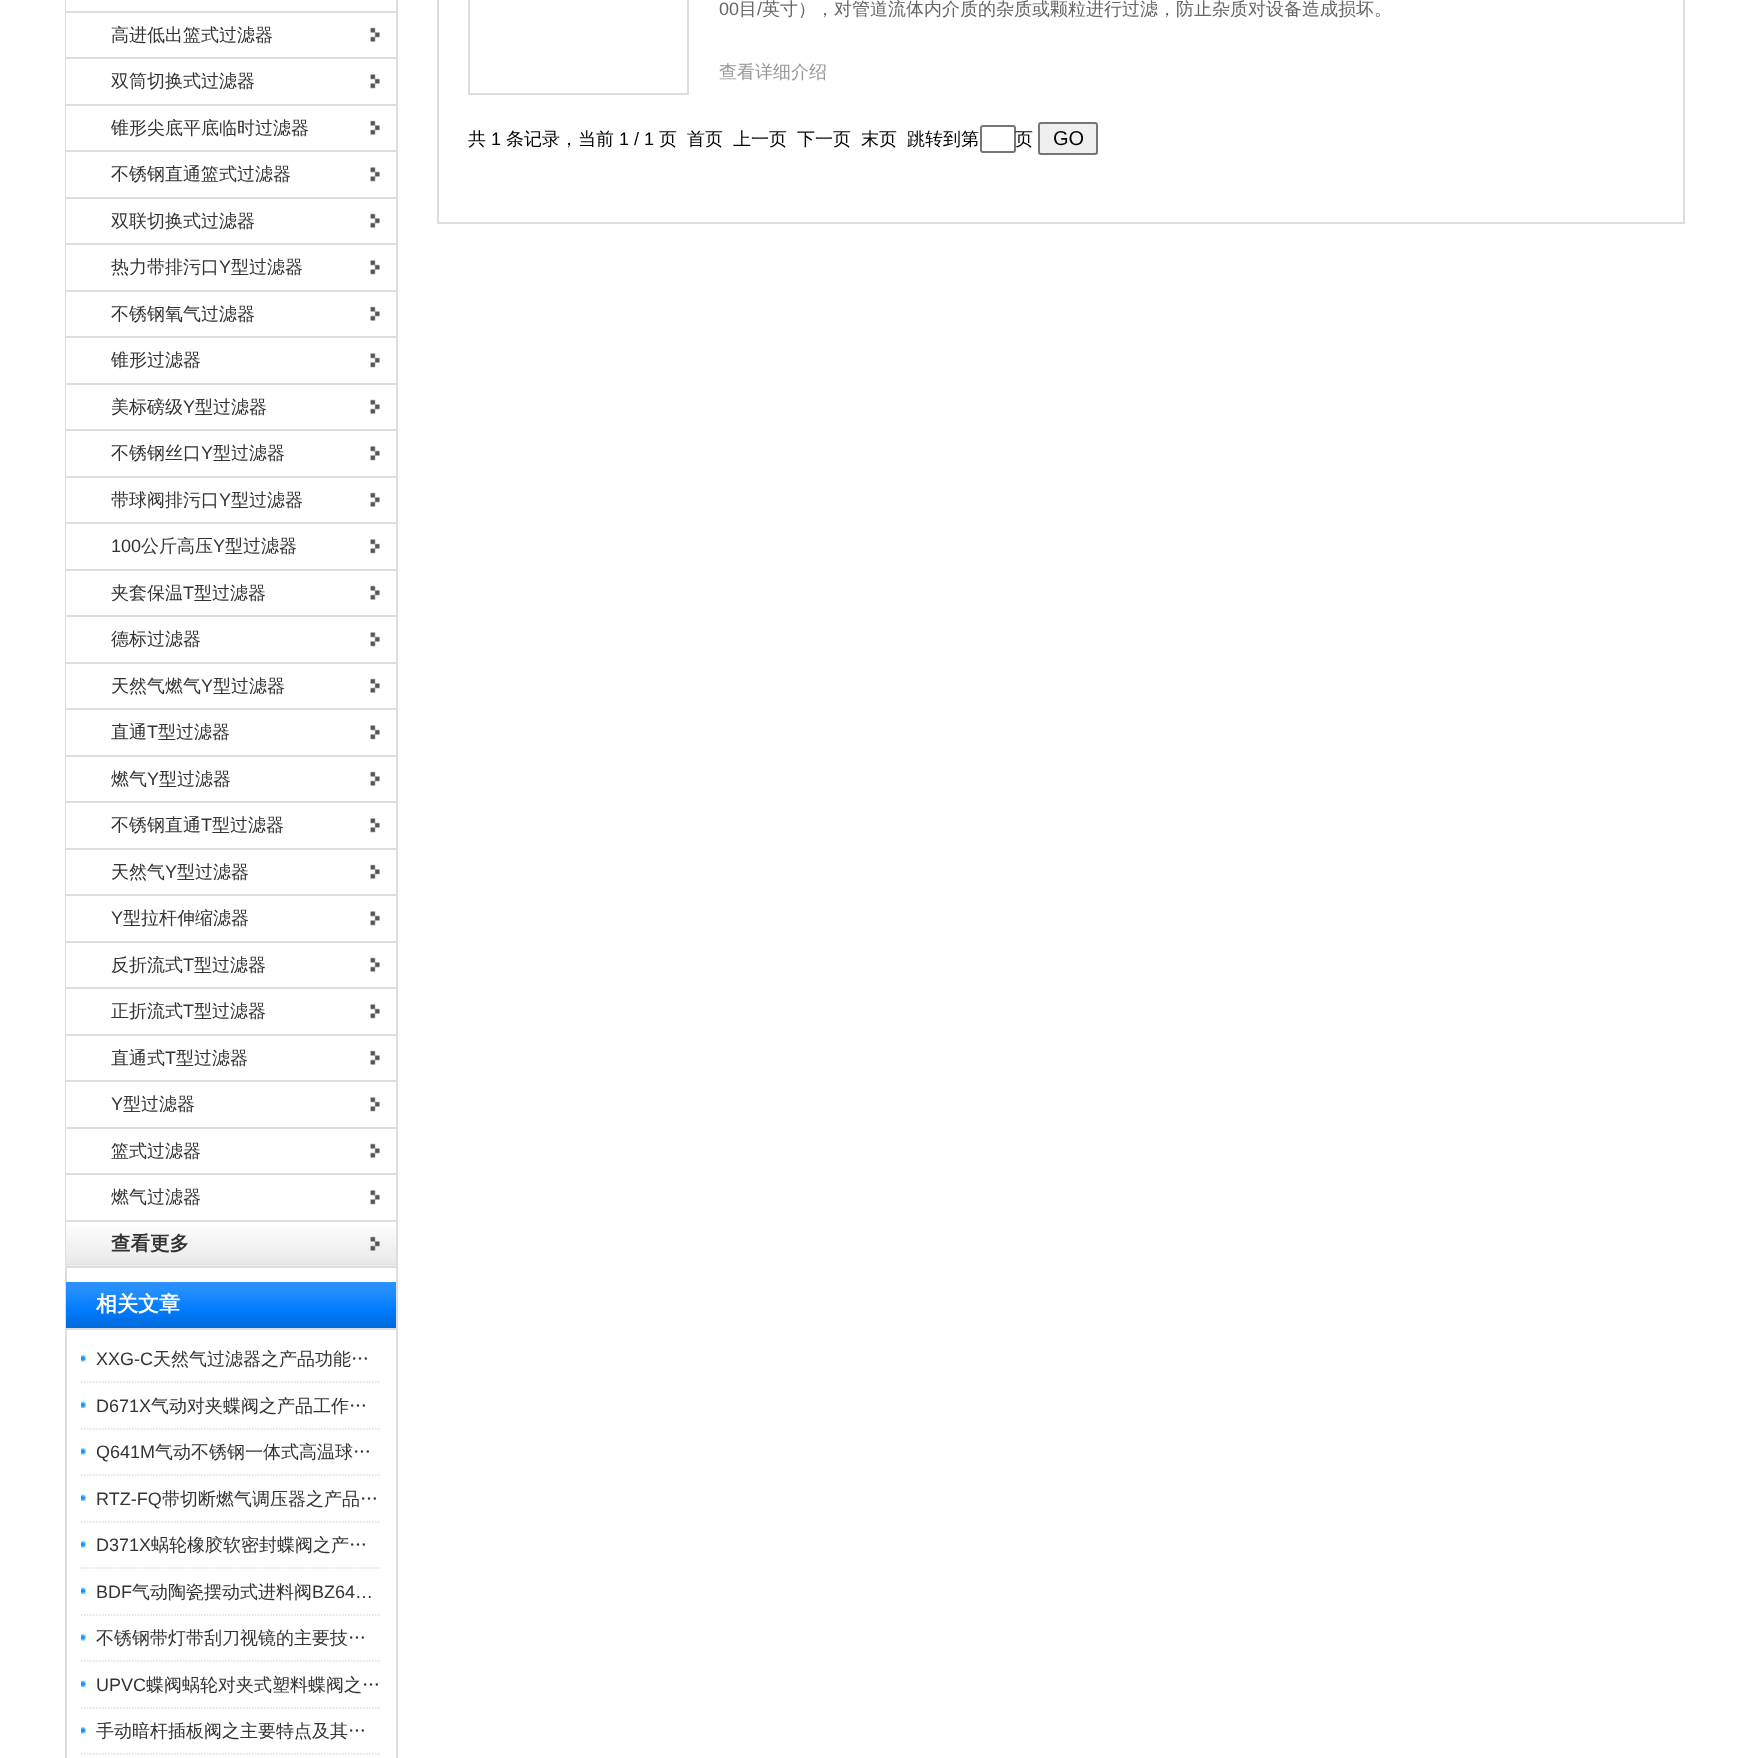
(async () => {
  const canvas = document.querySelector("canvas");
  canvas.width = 1749;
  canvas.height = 1758;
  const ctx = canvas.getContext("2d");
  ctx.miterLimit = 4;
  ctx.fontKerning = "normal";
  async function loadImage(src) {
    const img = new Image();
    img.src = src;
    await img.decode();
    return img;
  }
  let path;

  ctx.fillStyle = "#ffffff";
  ctx.fillRect(0, 0, 1749, 1758);
  ctx.strokeStyle = "#dddddd";
  ctx.lineWidth = 2;
  ctx.strokeRect(66, -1, 331, 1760);
  ctx.fillRect(66, 0, 1, 1220);
  ctx.fillStyle = "#dddddd";
  ctx.fillRect(66, 11, 330, 2);
  ctx.drawImage(await loadImage("img/1.png"), 370, 27, 10, 15);
  ctx.fillRect(66, 57, 330, 2);
  ctx.drawImage(await loadImage("img/2.png"), 370, 74, 10, 15);
  ctx.fillRect(66, 104, 330, 2);
  ctx.drawImage(await loadImage("img/1.png"), 370, 120, 10, 15);
  ctx.fillRect(66, 150, 330, 2);
  ctx.drawImage(await loadImage("img/2.png"), 370, 167, 10, 15);
  ctx.fillRect(66, 197, 330, 2);
  ctx.drawImage(await loadImage("img/1.png"), 370, 213, 10, 15);
  ctx.fillRect(66, 243, 330, 2);
  ctx.drawImage(await loadImage("img/2.png"), 370, 260, 10, 15);
  ctx.fillRect(66, 290, 330, 2);
  ctx.drawImage(await loadImage("img/1.png"), 370, 306, 10, 15);
  ctx.fillRect(66, 336, 330, 2);
  ctx.drawImage(await loadImage("img/2.png"), 370, 353, 10, 15);
  ctx.fillRect(66, 383, 330, 2);
  ctx.drawImage(await loadImage("img/1.png"), 370, 399, 10, 15);
  ctx.fillRect(66, 429, 330, 2);
  ctx.drawImage(await loadImage("img/2.png"), 370, 446, 10, 15);
  ctx.fillRect(66, 476, 330, 2);
  ctx.drawImage(await loadImage("img/1.png"), 370, 492, 10, 15);
  ctx.fillRect(66, 522, 330, 2);
  ctx.drawImage(await loadImage("img/2.png"), 370, 539, 10, 15);
  ctx.fillRect(66, 569, 330, 2);
  ctx.drawImage(await loadImage("img/1.png"), 370, 585, 10, 15);
  ctx.fillRect(66, 615, 330, 2);
  ctx.drawImage(await loadImage("img/2.png"), 370, 632, 10, 15);
  ctx.fillRect(66, 662, 330, 2);
  ctx.drawImage(await loadImage("img/1.png"), 370, 678, 10, 15);
  ctx.fillRect(66, 708, 330, 2);
  ctx.drawImage(await loadImage("img/2.png"), 370, 725, 10, 15);
  ctx.fillRect(66, 755, 330, 2);
  ctx.drawImage(await loadImage("img/1.png"), 370, 771, 10, 15);
  ctx.fillRect(66, 801, 330, 2);
  ctx.drawImage(await loadImage("img/2.png"), 370, 818, 10, 15);
  ctx.fillRect(66, 848, 330, 2);
  ctx.drawImage(await loadImage("img/1.png"), 370, 864, 10, 15);
  ctx.fillRect(66, 894, 330, 2);
  ctx.drawImage(await loadImage("img/2.png"), 370, 911, 10, 15);
  ctx.fillRect(66, 941, 330, 2);
  ctx.drawImage(await loadImage("img/1.png"), 370, 957, 10, 15);
  ctx.fillRect(66, 987, 330, 2);
  ctx.drawImage(await loadImage("img/2.png"), 370, 1004, 10, 15);
  ctx.fillRect(66, 1034, 330, 2);
  ctx.drawImage(await loadImage("img/1.png"), 370, 1050, 10, 15);
  ctx.fillRect(66, 1080, 330, 2);
  ctx.drawImage(await loadImage("img/2.png"), 370, 1097, 10, 15);
  ctx.fillRect(66, 1127, 330, 2);
  ctx.drawImage(await loadImage("img/1.png"), 370, 1143, 10, 15);
  ctx.fillRect(66, 1173, 330, 2);
  ctx.drawImage(await loadImage("img/2.png"), 370, 1190, 10, 15);
  ctx.fillRect(66, 1220, 330, 2);
  ctx.drawImage(await loadImage("img/3.png"), 66, 1222, 330, 44);
  ctx.drawImage(await loadImage("img/4.png"), 370, 1236, 10, 15);
  ctx.fillRect(66, 1266, 330, 2);
  ctx.drawImage(await loadImage("img/5.png"), 66, 1282, 330, 46);
  ctx.fillRect(66, 1328, 330, 2);
  ctx.drawImage(await loadImage("img/6.png"), 81, 1354, 5, 8);
  path = new Path2D("M81 1382H381");
  ctx.lineWidth = 1.5;
  ctx.setLineDash([1.5, 1.5]);
  ctx.stroke(path);
  ctx.drawImage(await loadImage("img/7.png"), 81, 1400, 5, 8);
  path = new Path2D("M81 1429H381");
  ctx.stroke(path);
  ctx.drawImage(await loadImage("img/6.png"), 81, 1447, 5, 8);
  path = new Path2D("M81 1475H381");
  ctx.stroke(path);
  ctx.drawImage(await loadImage("img/7.png"), 81, 1493, 5, 8);
  path = new Path2D("M81 1522H381");
  ctx.stroke(path);
  ctx.drawImage(await loadImage("img/6.png"), 81, 1540, 5, 8);
  path = new Path2D("M81 1568H381");
  ctx.stroke(path);
  ctx.drawImage(await loadImage("img/7.png"), 81, 1586, 5, 8);
  path = new Path2D("M81 1615H381");
  ctx.stroke(path);
  ctx.drawImage(await loadImage("img/6.png"), 81, 1633, 5, 8);
  path = new Path2D("M81 1661H381");
  ctx.stroke(path);
  ctx.drawImage(await loadImage("img/7.png"), 81, 1679, 5, 8);
  path = new Path2D("M81 1708H381");
  ctx.stroke(path);
  ctx.drawImage(await loadImage("img/6.png"), 81, 1726, 5, 8);
  path = new Path2D("M81 1754H381");
  ctx.stroke(path);
  ctx.lineWidth = 2;
  ctx.setLineDash([]);
  ctx.strokeRect(438, -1, 1246, 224);
  ctx.strokeRect(469, -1, 219, 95);
  ctx.beginPath();
  ctx.roundRect(981, 126, 34, 26, 2);
  ctx.strokeStyle = "#767676";
  ctx.stroke();
  ctx.fillStyle = "#efefef";
  ctx.beginPath();
  ctx.roundRect(1039, 123, 58, 31, 2);
  ctx.fill();
  ctx.stroke();
  ctx.font = "500 18px WenQuanYi Zen Hei";
  ctx.fillStyle = "#333333";
  for (const [text, x, y] of [
    ["高进低出篮式过滤器", 111, 41],
    ["双筒切换式过滤器", 111, 87],
    ["锥形尖底平底临时过滤器", 111, 134],
    ["不锈钢直通篮式过滤器", 111, 180],
    ["双联切换式过滤器", 111, 227],
    ["热力带排污口", 111, 273],
  ]) {
    ctx.fillText(text, x, y);
  }
  ctx.font = "18px Liberation Sans";
  ctx.fillText("Y", 219, 273);
  ctx.font = "500 18px WenQuanYi Zen Hei";
  for (const [text, x, y] of [
    ["型过滤器", 231, 273],
    ["不锈钢氧气过滤器", 111, 320],
    ["锥形过滤器", 111, 366],
    ["美标磅级", 111, 413],
  ]) {
    ctx.fillText(text, x, y);
  }
  ctx.font = "18px Liberation Sans";
  ctx.fillText("Y", 183, 413);
  ctx.font = "500 18px WenQuanYi Zen Hei";
  ctx.fillText("型过滤器", 195, 413);
  ctx.fillText("不锈钢丝口", 111, 459);
  ctx.font = "18px Liberation Sans";
  ctx.fillText("Y", 201, 459);
  ctx.font = "500 18px WenQuanYi Zen Hei";
  ctx.fillText("型过滤器", 213, 459);
  ctx.fillText("带球阀排污口", 111, 506);
  ctx.font = "18px Liberation Sans";
  ctx.fillText("Y", 219, 506);
  ctx.font = "500 18px WenQuanYi Zen Hei";
  ctx.fillText("型过滤器", 231, 506);
  ctx.font = "18px Liberation Sans";
  ctx.fillText("100", 111, 552);
  ctx.font = "500 18px WenQuanYi Zen Hei";
  ctx.fillText("公斤高压", 141, 552);
  ctx.font = "18px Liberation Sans";
  ctx.fillText("Y", 213, 552);
  ctx.font = "500 18px WenQuanYi Zen Hei";
  ctx.fillText("型过滤器", 225, 552);
  ctx.fillText("夹套保温", 111, 599);
  ctx.font = "18px Liberation Sans";
  ctx.fillText("T", 183, 599);
  ctx.font = "500 18px WenQuanYi Zen Hei";
  for (const [text, x, y] of [
    ["型过滤器", 194, 599],
    ["德标过滤器", 111, 645],
    ["天然气燃气", 111, 692],
  ]) {
    ctx.fillText(text, x, y);
  }
  ctx.font = "18px Liberation Sans";
  ctx.fillText("Y", 201, 692);
  ctx.font = "500 18px WenQuanYi Zen Hei";
  ctx.fillText("型过滤器", 213, 692);
  ctx.fillText("直通", 111, 738);
  ctx.font = "18px Liberation Sans";
  ctx.fillText("T", 147, 738);
  ctx.font = "500 18px WenQuanYi Zen Hei";
  ctx.fillText("型过滤器", 158, 738);
  ctx.fillText("燃气", 111, 785);
  ctx.font = "18px Liberation Sans";
  ctx.fillText("Y", 147, 785);
  ctx.font = "500 18px WenQuanYi Zen Hei";
  ctx.fillText("型过滤器", 159, 785);
  ctx.fillText("不锈钢直通", 111, 831);
  ctx.font = "18px Liberation Sans";
  ctx.fillText("T", 201, 831);
  ctx.font = "500 18px WenQuanYi Zen Hei";
  ctx.fillText("型过滤器", 212, 831);
  ctx.fillText("天然气", 111, 878);
  ctx.font = "18px Liberation Sans";
  ctx.fillText("Y", 165, 878);
  ctx.font = "500 18px WenQuanYi Zen Hei";
  ctx.fillText("型过滤器", 177, 878);
  ctx.font = "18px Liberation Sans";
  ctx.fillText("Y", 111, 924);
  ctx.font = "500 18px WenQuanYi Zen Hei";
  ctx.fillText("型拉杆伸缩滤器", 123, 924);
  ctx.fillText("反折流式", 111, 971);
  ctx.font = "18px Liberation Sans";
  ctx.fillText("T", 183, 971);
  ctx.font = "500 18px WenQuanYi Zen Hei";
  ctx.fillText("型过滤器", 194, 971);
  ctx.fillText("正折流式", 111, 1017);
  ctx.font = "18px Liberation Sans";
  ctx.fillText("T", 183, 1017);
  ctx.font = "500 18px WenQuanYi Zen Hei";
  ctx.fillText("型过滤器", 194, 1017);
  ctx.fillText("直通式", 111, 1064);
  ctx.font = "18px Liberation Sans";
  ctx.fillText("T", 165, 1064);
  ctx.font = "500 18px WenQuanYi Zen Hei";
  ctx.fillText("型过滤器", 176, 1064);
  ctx.font = "18px Liberation Sans";
  ctx.fillText("Y", 111, 1110);
  ctx.font = "500 18px WenQuanYi Zen Hei";
  for (const [text, x, y] of [
    ["型过滤器", 123, 1110],
    ["篮式过滤器", 111, 1157],
    ["燃气过滤器", 111, 1203],
  ]) {
    ctx.fillText(text, x, y);
  }
  ctx.font = "bold 19.5px WenQuanYi Zen Hei";
  ctx.fillText("查看更多", 111, 1250);
  ctx.font = "bold 21px WenQuanYi Zen Hei";
  ctx.fillStyle = "#ffffff";
  ctx.fillText("相关文章", 96, 1311);
  ctx.font = "18px Liberation Sans";
  ctx.fillStyle = "#333333";
  ctx.fillText("XXG-C", 96, 1365);
  ctx.font = "500 18px WenQuanYi Zen Hei";
  ctx.fillText("天然气过滤器之产品功能…", 153, 1365);
  ctx.font = "18px Liberation Sans";
  ctx.fillText("D671X", 96, 1412);
  ctx.font = "500 18px WenQuanYi Zen Hei";
  ctx.fillText("气动对夹蝶阀之产品工作…", 151, 1412);
  ctx.font = "18px Liberation Sans";
  ctx.fillText("Q641M", 96, 1458);
  ctx.font = "500 18px WenQuanYi Zen Hei";
  ctx.fillText("气动不锈钢一体式高温球…", 155, 1458);
  ctx.font = "18px Liberation Sans";
  ctx.fillText("RTZ-FQ", 96, 1505);
  ctx.font = "500 18px WenQuanYi Zen Hei";
  ctx.fillText("带切断燃气调压器之产品…", 162, 1505);
  ctx.font = "18px Liberation Sans";
  ctx.fillText("D371X", 96, 1551);
  ctx.font = "500 18px WenQuanYi Zen Hei";
  ctx.fillText("蜗轮橡胶软密封蝶阀之产…", 151, 1551);
  ctx.font = "18px Liberation Sans";
  ctx.fillText("BDF", 96, 1598);
  ctx.font = "500 18px WenQuanYi Zen Hei";
  ctx.fillText("气动陶瓷摆动式进料阀", 132, 1598);
  ctx.font = "18px Liberation Sans";
  ctx.fillText("BZ64…", 312, 1598);
  ctx.font = "500 18px WenQuanYi Zen Hei";
  ctx.fillText("不锈钢带灯带刮刀视镜的主要技…", 96, 1644);
  ctx.font = "18px Liberation Sans";
  ctx.fillText("UPVC", 96, 1691);
  ctx.font = "500 18px WenQuanYi Zen Hei";
  ctx.fillText("蝶阀蜗轮对夹式塑料蝶阀之…", 146, 1691);
  ctx.fillText("手动暗杆插板阀之主要特点及其…", 96, 1737);
  ctx.font = "18px Liberation Sans";
  ctx.fillStyle = "#666666";
  ctx.fillText("00", 719, 15);
  ctx.font = "500 18px WenQuanYi Zen Hei";
  ctx.fillText("目", 739, 15);
  ctx.font = "18px Liberation Sans";
  ctx.fillText("/", 757, 15);
  ctx.font = "500 18px WenQuanYi Zen Hei";
  ctx.fillText("英寸），对管道流体内介质的杂质或颗粒进行过滤，防止杂质对设备造成损坏。", 762, 15);
  ctx.fillStyle = "#999999";
  ctx.fillText("查看详细介绍", 719, 78);
  ctx.fillStyle = "#000000";
  ctx.fillText("共", 468, 145);
  ctx.font = "18px Liberation Sans";
  ctx.fillText("1", 491, 145);
  ctx.font = "500 18px WenQuanYi Zen Hei";
  ctx.fillText("条记录，当前", 506, 145);
  ctx.font = "18px Liberation Sans";
  ctx.fillText("1 / 1", 619, 145);
  ctx.font = "500 18px WenQuanYi Zen Hei";
  for (const [text, x, y] of [
    ["页", 659, 145],
    ["首页", 687, 145],
    ["上一页", 733, 145],
    ["下一页", 797, 145],
    ["末页", 861, 145],
    ["跳转到第", 907, 145],
    ["页", 1015, 145],
  ]) {
    ctx.fillText(text, x, y);
  }
  ctx.font = "20px Liberation Sans";
  ctx.fillText("GO", 1053, 145);
})();
